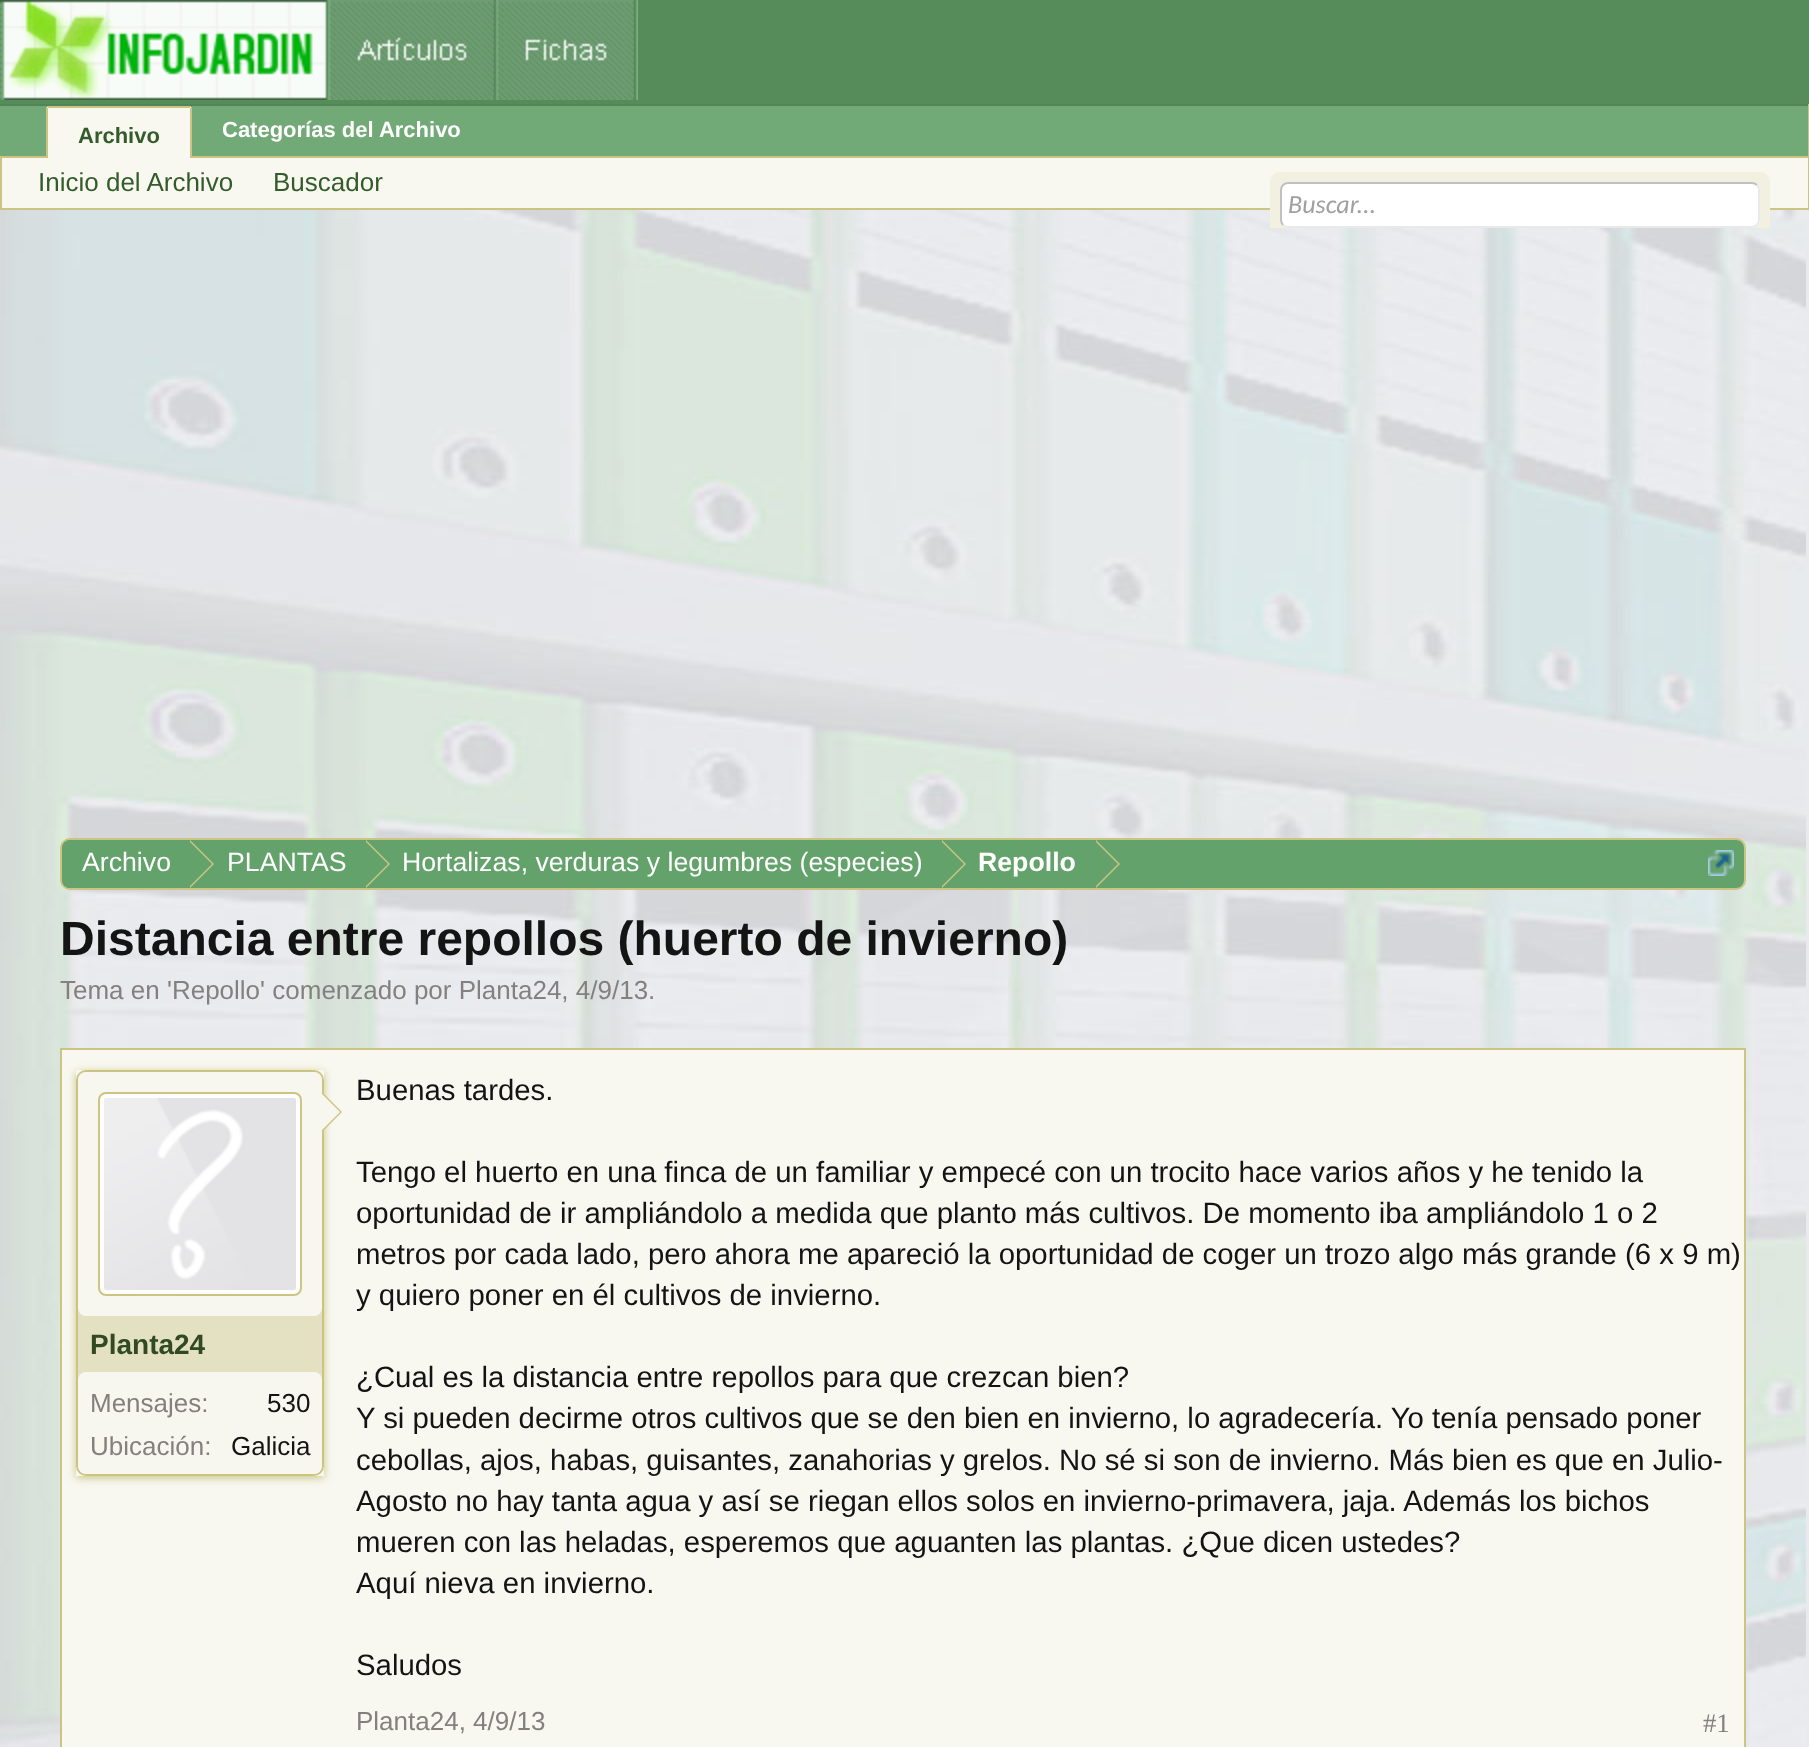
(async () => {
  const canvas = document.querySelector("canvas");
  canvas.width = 1809;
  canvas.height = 1747;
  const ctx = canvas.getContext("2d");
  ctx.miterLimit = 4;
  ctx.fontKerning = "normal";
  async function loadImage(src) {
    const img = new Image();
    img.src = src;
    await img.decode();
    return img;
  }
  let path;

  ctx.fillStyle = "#e9eaed";
  ctx.fillRect(0, 0, 1809, 1747);
  ctx.fillStyle = "#558c5a";
  ctx.fillRect(0, 0, 1809, 104);
  ctx.drawImage(await loadImage("img/1.png"), 0, 0, 638, 100);
  for (const [x, y, w, h, color] of [
    [0, 106, 1808, 50, "#71a977"],
    [0, 104, 1809, 2, "#518456"],
    [1808, 104, 1, 106, "#cbc483"],
    [0, 156, 1809, 2, "#cbc483"],
  ]) {
    ctx.fillStyle = color;
    ctx.fillRect(x, y, w, h);
  }
  ctx.fillStyle = "#f8f8f1";
  ctx.beginPath();
  ctx.roundRect(46, 106, 146, 56, [4, 4, 0, 0]);
  ctx.fill();
  for (const [x, y, w, h, color] of [
    [48, 106, 142, 2, "#cbc483"],
    [190, 108, 2, 54, "#cbc483"],
    [46, 108, 2, 54, "#cbc483"],
    [2, 158, 1806, 50, "#f8f8f1"],
    [0, 208, 1809, 2, "#cbc483"],
    [0, 158, 2, 52, "#cbc483"],
  ]) {
    ctx.fillStyle = color;
    ctx.fillRect(x, y, w, h);
  }
  ctx.drawImage(await loadImage("img/2.png"), 0, 210, 1806, 1537);
  ctx.fillStyle = "#f2f0e1";
  ctx.beginPath();
  ctx.roundRect(1270, 172, 500, 56, 10);
  ctx.fill();
  ctx.fillRect(1270, 220, 500, 8);
  ctx.fillStyle = "#ffffff";
  ctx.beginPath();
  ctx.roundRect(1280, 182, 480, 46, 8);
  ctx.fill();
  path = new Path2D("M1757 185C1758.5 186.5 1759 188 1759 190V220C1759 222 1758.5 223.5 1757 225C1755.5 226.5 1754 227 1752 227H1288C1286 227 1284.5 226.5 1283 225");
  ctx.strokeStyle = "#e9e9e9";
  ctx.lineWidth = 2;
  ctx.stroke(path);
  path = new Path2D("M1283 225C1281.5 223.5 1281 222 1281 220V190C1281 188 1281.5 186.5 1283 185C1284.5 183.5 1286 183 1288 183H1752C1754 183 1755.5 183.5 1757 185");
  ctx.strokeStyle = "#c0c0c0";
  ctx.stroke(path);
  ctx.fillStyle = "#64a26b";
  ctx.beginPath();
  ctx.roundRect(61, 839, 1684, 50, 9);
  ctx.fill();
  ctx.strokeStyle = "#cbc483";
  ctx.stroke();
  ctx.save();
  ctx.beginPath();
  ctx.roundRect(62, 840, 1682, 48, 8);
  ctx.clip();
  ctx.beginPath();
  ctx.roundRect(62, 840, 128, 50, [8, 0, 0, 8]);
  ctx.fill();
  ctx.restore();
  ctx.fillStyle = "#cbc483";
  path = new Path2D("M190 888V840L214 864Z");
  ctx.fill(path);
  ctx.fillStyle = "#64a26b";
  path = new Path2D("M188 888V840L212 864Z");
  ctx.fill(path);
  ctx.fillStyle = "#cbc483";
  path = new Path2D("M366 888V840L390 864Z");
  ctx.fill(path);
  ctx.fillStyle = "#64a26b";
  path = new Path2D("M364 888V840L388 864Z");
  ctx.fill(path);
  ctx.fillStyle = "#cbc483";
  path = new Path2D("M942 888V840L966 864Z");
  ctx.fill(path);
  ctx.fillStyle = "#64a26b";
  path = new Path2D("M940 888V840L964 864Z");
  ctx.fill(path);
  ctx.fillStyle = "#cbc483";
  path = new Path2D("M1096 888V840L1120 864Z");
  ctx.fill(path);
  ctx.fillStyle = "#64a26b";
  path = new Path2D("M1094 888V840L1118 864Z");
  ctx.fill(path);
  ctx.drawImage(await loadImage("img/3.png"), 1708, 850, 26, 26);
  for (const [x, y, w, h, color] of [
    [62, 1050, 1682, 697, "#f8f8f1"],
    [60, 1048, 1686, 2, "#cbc483"],
    [1744, 1048, 2, 699, "#cbc483"],
    [60, 1048, 2, 699, "#cbc483"],
  ]) {
    ctx.fillStyle = color;
    ctx.fillRect(x, y, w, h);
  }
  ctx.save();
  path = new Path2D("M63 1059H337V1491H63ZM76 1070H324V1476H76Z");
  ctx.clip(path, "evenodd");
  ctx.filter = "blur(4px)";
  ctx.beginPath();
  ctx.rect(76, 1072, 248, 406);
  ctx.fill();
  ctx.filter = "none";
  ctx.restore();
  ctx.fillStyle = "#e4e1c2";
  ctx.beginPath();
  ctx.roundRect(77, 1071, 246, 404, 9);
  ctx.fill();
  ctx.stroke();
  ctx.fillStyle = "#f8f7ef";
  ctx.beginPath();
  ctx.roundRect(78, 1072, 244, 244, 8);
  ctx.fill();
  ctx.fillStyle = "#fffcfe";
  ctx.beginPath();
  ctx.roundRect(99, 1093, 202, 202, 7);
  ctx.fill();
  ctx.stroke();
  ctx.drawImage(await loadImage("img/4.png"), 104, 1098, 192, 192);
  ctx.fillStyle = "#cbc483";
  path = new Path2D("M322 1132V1092L342 1112Z");
  ctx.fill(path);
  ctx.fillStyle = "#f8f7ef";
  path = new Path2D("M320 1132V1092L340 1112Z");
  ctx.fill(path);
  ctx.beginPath();
  ctx.roundRect(78, 1372, 244, 102, 8);
  ctx.fill();
  ctx.font = "bold 22px Liberation Sans";
  ctx.fillStyle = "#ffffff";
  ctx.fillText("Categorías del Archivo", 222, 137);
  ctx.fillStyle = "#345c2b";
  ctx.fillText("Archivo", 78, 143);
  ctx.font = "26px Liberation Sans";
  ctx.fillText("Inicio del Archivo", 38, 191);
  ctx.fillText("Buscador", 273, 191);
  ctx.font = "italic 26px Carlito";
  ctx.fillStyle = "#a0a0a0";
  ctx.fillText("Buscar...", 1288, 213);
  ctx.font = "26.7px Liberation Sans";
  ctx.fillStyle = "#ffffff";
  for (const [text, x, y] of [
    ["Archivo", 82, 871],
    ["PLANTAS", 227, 871],
    ["Hortalizas, verduras y legumbres (especies)", 402, 871],
  ]) {
    ctx.fillText(text, x, y);
  }
  ctx.font = "bold 26.7px Liberation Sans";
  ctx.fillText("Repollo", 978, 871);
  ctx.font = "bold 48px Liberation Sans";
  ctx.fillStyle = "#141414";
  ctx.fillText("Distancia entre repollos (huerto de invierno)", 60, 955);
  ctx.font = "26px Liberation Sans";
  ctx.fillStyle = "#848080";
  ctx.fillText("Tema en 'Repollo' comenzado por Planta24, 4/9/13.", 60, 999);
  ctx.font = "bold 28px Liberation Sans";
  ctx.fillStyle = "#2f4a24";
  ctx.fillText("Planta24", 90, 1354);
  ctx.font = "26px Liberation Sans";
  ctx.fillStyle = "#848080";
  ctx.fillText("Mensajes:", 90, 1412);
  ctx.fillStyle = "#141414";
  ctx.fillText("530", 267, 1412);
  ctx.fillStyle = "#848080";
  ctx.fillText("Ubicación:", 90, 1455);
  ctx.fillStyle = "#141414";
  ctx.fillText("Galicia", 231, 1455);
  ctx.font = "29.35px Liberation Sans";
  for (const [text, x, y] of [
    ["Buenas tardes.", 356, 1100],
    ["Tengo el huerto en una finca de un familiar y empecé con un trocito hace varios años y he tenido la", 356, 1182],
    ["oportunidad de ir ampliándolo a medida que planto más cultivos. De momento iba ampliándolo 1 o 2", 356, 1223],
    ["metros por cada lado, pero ahora me apareció la oportunidad de coger un trozo algo más grande (6 x 9 m)", 356, 1264],
    ["y quiero poner en él cultivos de invierno.", 356, 1305],
    ["¿Cual es la distancia entre repollos para que crezcan bien?", 356, 1387],
    ["Y si pueden decirme otros cultivos que se den bien en invierno, lo agradecería. Yo tenía pensado poner", 356, 1428],
    ["cebollas, ajos, habas, guisantes, zanahorias y grelos. No sé si son de invierno. Más bien es que en Julio-", 356, 1470],
    ["Agosto no hay tanta agua y así se riegan ellos solos en invierno-primavera, jaja. Además los bichos", 356, 1511],
    ["mueren con las heladas, esperemos que aguanten las plantas. ¿Que dicen ustedes?", 356, 1552],
    ["Aquí nieva en invierno.", 356, 1593],
    ["Saludos", 356, 1675],
  ]) {
    ctx.fillText(text, x, y);
  }
  ctx.font = "26px Liberation Sans";
  ctx.fillStyle = "#848080";
  ctx.fillText("Planta24, 4/9/13", 356, 1730);
  ctx.font = "26.7px Liberation Serif";
  ctx.fillText("#1", 1703, 1732);
})();
